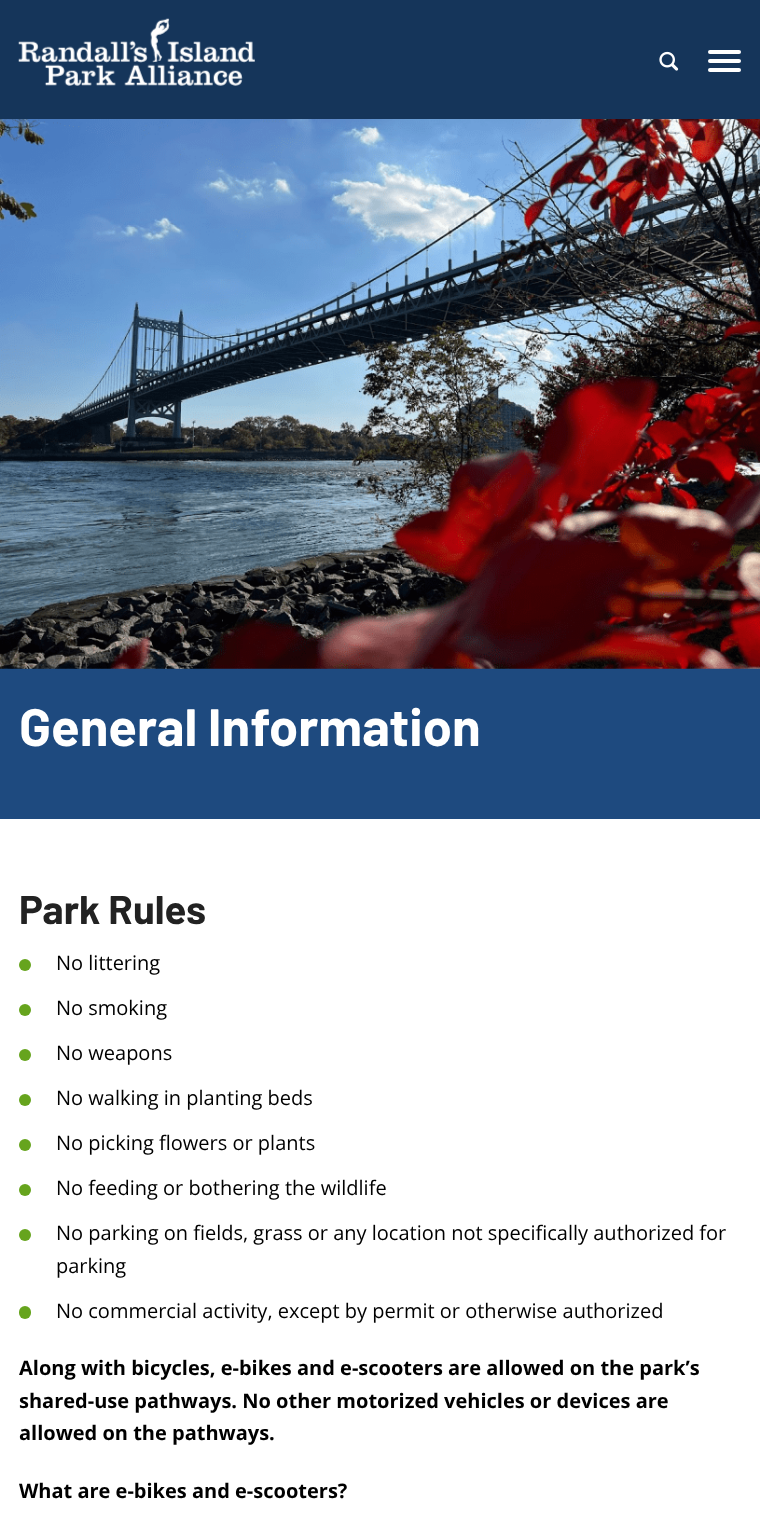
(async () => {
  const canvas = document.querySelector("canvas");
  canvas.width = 760;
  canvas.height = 1524;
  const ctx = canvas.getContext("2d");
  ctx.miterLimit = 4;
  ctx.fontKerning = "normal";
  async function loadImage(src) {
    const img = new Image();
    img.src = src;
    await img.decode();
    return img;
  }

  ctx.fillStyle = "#ffffff";
  ctx.fillRect(0, 0, 760, 1524);
  ctx.fillStyle = "#15355a";
  ctx.fillRect(0, 0, 760, 119);
  ctx.drawImage(await loadImage("img/1.png"), 18, 18, 237, 68);
  ctx.drawImage(await loadImage("img/2.png"), 659, 51, 20, 20);
  ctx.fillStyle = "#ffffff";
  ctx.beginPath();
  ctx.roundRect(708, 50, 33, 4, 2);
  ctx.fill();
  ctx.beginPath();
  ctx.roundRect(708, 59, 33, 4, 2);
  ctx.fill();
  ctx.beginPath();
  ctx.roundRect(708, 68, 33, 4, 2);
  ctx.fill();
  ctx.fillStyle = "#1e4a7f";
  ctx.fillRect(0, 668, 760, 151);
  ctx.drawImage(await loadImage("img/3.png"), 0, 119, 760, 550);
  ctx.fillStyle = "#66a41d";
  ctx.beginPath();
  ctx.arc(25, 965, 6, 0, Math.PI * 2);
  ctx.fill();
  ctx.beginPath();
  ctx.arc(25, 1010, 6, 0, Math.PI * 2);
  ctx.fill();
  ctx.beginPath();
  ctx.arc(25, 1055, 6, 0, Math.PI * 2);
  ctx.fill();
  ctx.beginPath();
  ctx.arc(25, 1100, 6, 0, Math.PI * 2);
  ctx.fill();
  ctx.beginPath();
  ctx.arc(25, 1145, 6, 0, Math.PI * 2);
  ctx.fill();
  ctx.beginPath();
  ctx.arc(25, 1190, 6, 0, Math.PI * 2);
  ctx.fill();
  ctx.beginPath();
  ctx.arc(25, 1235, 6, 0, Math.PI * 2);
  ctx.fill();
  ctx.beginPath();
  ctx.roundRect(19, 1306, 12, 13, 6);
  ctx.fill();
  ctx.font = "bold 52.5px Barlow";
  ctx.fillStyle = "#ffffff";
  ctx.fillText("General Information", 19, 746);
  ctx.font = "bold 40px Barlow";
  ctx.fillStyle = "#222222";
  ctx.fillText("Park Rules", 19, 924);
  ctx.font = "20px Open Sans";
  ctx.fillStyle = "#000000";
  for (const [text, x, y] of [
    ["No littering", 56, 970],
    ["No smoking", 56, 1015],
    ["No weapons", 56, 1060],
    ["No walking in planting beds", 56, 1105],
    ["No picking flowers or plants", 56, 1150],
    ["No feeding or bothering the wildlife", 56, 1195],
    ["No parking on fields, grass or any location not specifically authorized for", 56, 1240],
    ["parking", 56, 1273],
    ["No commercial activity, except by permit or otherwise authorized", 56, 1318],
  ]) {
    ctx.fillText(text, x, y);
  }
  ctx.font = "bold 20px Open Sans";
  for (const [text, x, y] of [
    ["Along with bicycles, e-bikes and e-scooters are allowed on the park’s", 19, 1375],
    ["shared-use pathways. No other motorized vehicles or devices are", 19, 1408],
    ["allowed on the pathways.", 19, 1440],
    ["What are e-bikes and e-scooters?", 19, 1498],
  ]) {
    ctx.fillText(text, x, y);
  }
})();
